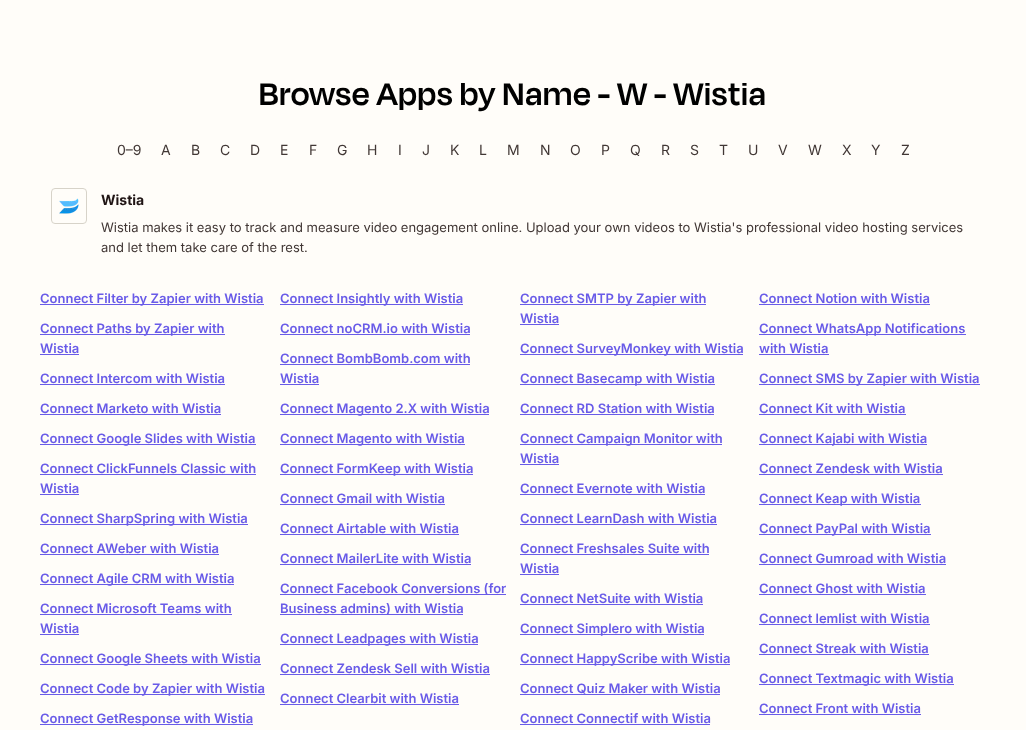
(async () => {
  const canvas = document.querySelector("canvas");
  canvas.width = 1026;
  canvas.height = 730;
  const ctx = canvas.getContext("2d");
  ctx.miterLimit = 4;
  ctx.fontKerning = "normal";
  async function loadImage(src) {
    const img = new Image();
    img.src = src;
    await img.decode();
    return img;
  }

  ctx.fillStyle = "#fffdf9";
  ctx.fillRect(0, 0, 1026, 730);
  ctx.beginPath();
  ctx.roundRect(51.5, 188.5, 35, 35, 3.5);
  ctx.strokeStyle = "#d7d3c9";
  ctx.stroke();
  ctx.drawImage(await loadImage("img/1.png"), 59, 198, 20, 16);
  for (const [x, y, w, h, color] of [
    [40, 304, 224, 1, "#695be8"],
    [280, 304, 183, 1, "#695be8"],
    [520, 304, 186, 1, "#695be8"],
    [520, 324, 39, 1, "#695be8"],
    [759, 304, 171, 1, "#695be8"],
    [40, 334, 185, 1, "#695be8"],
    [40, 354, 39, 1, "#695be8"],
    [280, 334, 190, 1, "#695be8"],
    [520, 354, 223, 1, "#695be8"],
    [759, 334, 207, 1, "#695be8"],
    [759, 354, 70, 1, "#695be8"],
    [40, 384, 185, 1, "#695be8"],
    [280, 364, 190, 1, "#695be8"],
    [280, 384, 39, 1, "#695be8"],
    [520, 384, 195, 1, "#695be8"],
    [759, 384, 221, 1, "#695be8"],
    [40, 414, 181, 1, "#695be8"],
    [280, 414, 209, 1, "#695be8"],
    [520, 414, 194, 1, "#695be8"],
    [759, 414, 147, 1, "#695be8"],
    [40, 444, 216, 1, "#695be8"],
    [280, 444, 185, 1, "#695be8"],
    [520, 444, 202, 1, "#695be8"],
    [520, 464, 39, 1, "#695be8"],
    [759, 444, 168, 1, "#695be8"],
    [40, 474, 216, 1, "#695be8"],
    [40, 494, 39, 1, "#695be8"],
    [280, 474, 193, 1, "#695be8"],
    [759, 474, 184, 1, "#695be8"],
    [520, 494, 185, 1, "#695be8"],
    [280, 504, 165, 1, "#695be8"],
    [759, 504, 162, 1, "#695be8"],
    [40, 524, 208, 1, "#695be8"],
    [520, 524, 197, 1, "#695be8"],
    [280, 534, 179, 1, "#695be8"],
    [759, 534, 172, 1, "#695be8"],
    [40, 554, 179, 1, "#695be8"],
    [280, 564, 191, 1, "#695be8"],
    [520, 554, 189, 1, "#695be8"],
    [520, 574, 39, 1, "#695be8"],
    [759, 564, 187, 1, "#695be8"],
    [40, 584, 194, 1, "#695be8"],
    [280, 594, 226, 1, "#695be8"],
    [280, 614, 183, 1, "#695be8"],
    [759, 594, 167, 1, "#695be8"],
    [520, 604, 183, 1, "#695be8"],
    [40, 614, 192, 1, "#695be8"],
    [40, 634, 39, 1, "#695be8"],
    [759, 624, 171, 1, "#695be8"],
    [520, 634, 184, 1, "#695be8"],
    [280, 644, 198, 1, "#695be8"],
    [759, 654, 170, 1, "#695be8"],
    [40, 664, 221, 1, "#695be8"],
    [520, 664, 210, 1, "#695be8"],
    [280, 674, 210, 1, "#695be8"],
    [759, 684, 195, 1, "#695be8"],
    [40, 694, 225, 1, "#695be8"],
    [520, 694, 200, 1, "#695be8"],
    [280, 704, 179, 1, "#695be8"],
    [759, 714, 162, 1, "#695be8"],
    [40, 724, 213, 1, "#695be8"],
    [520, 724, 190, 1, "#695be8"],
  ]) {
    ctx.fillStyle = color;
    ctx.fillRect(x, y, w, h);
  }
  ctx.letterSpacing = "1px";
  ctx.font = "600 36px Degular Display";
  ctx.fillStyle = "#000000";
  ctx.fillText("Browse Apps by Name - W - Wistia", 259, 105);
  ctx.letterSpacing = "0px";
  ctx.font = "14px Inter";
  ctx.fillStyle = "#413735";
  for (const [text, x, y] of [
    ["0–9", 117, 155],
    ["A", 161, 155],
    ["B", 191, 155],
    ["C", 220, 155],
    ["D", 250, 155],
    ["E", 280, 155],
    ["F", 309, 155],
    ["G", 337, 155],
    ["H", 367, 155],
    ["I", 398, 155],
    ["J", 422, 155],
    ["K", 450, 155],
    ["L", 479, 155],
    ["M", 507, 155],
    ["N", 540, 155],
    ["O", 570, 155],
    ["P", 601, 155],
    ["Q", 630, 155],
    ["R", 661, 155],
    ["S", 690, 155],
    ["T", 719, 155],
    ["U", 748, 155],
    ["V", 778, 155],
    ["W", 808, 155],
    ["X", 842, 155],
    ["Y", 871, 155],
    ["Z", 901, 155],
  ]) {
    ctx.fillText(text, x, y);
  }
  ctx.font = "bold 14px Inter";
  ctx.fillStyle = "#201515";
  ctx.fillText("Wistia", 101, 205);
  ctx.font = "13px Inter";
  ctx.fillStyle = "#413735";
  ctx.fillText("Wistia makes it easy to track and measure video engagement online. Upload your own videos to Wistia's professional video hosting services", 101, 232);
  ctx.fillText("and let them take care of the rest.", 101, 252);
  ctx.font = "600 13px Inter";
  ctx.fillStyle = "#695be8";
  for (const [text, x, y] of [
    ["Connect Filter by Zapier with Wistia", 40, 303],
    ["Connect Insightly with Wistia", 280, 303],
    ["Connect SMTP by Zapier with", 520, 303],
    ["Wistia", 520, 323],
    ["Connect Notion with Wistia", 759, 303],
    ["Connect Paths by Zapier with", 40, 333],
    ["Wistia", 40, 353],
    ["Connect noCRM.io with Wistia", 280, 333],
    ["Connect SurveyMonkey with Wistia", 520, 353],
    ["Connect WhatsApp Notifications", 759, 333],
    ["with Wistia", 759, 353],
    ["Connect Intercom with Wistia", 40, 383],
    ["Connect BombBomb.com with", 280, 363],
    ["Wistia", 280, 383],
    ["Connect Basecamp with Wistia", 520, 383],
    ["Connect SMS by Zapier with Wistia", 759, 383],
    ["Connect Marketo with Wistia", 40, 413],
    ["Connect Magento 2.X with Wistia", 280, 413],
    ["Connect RD Station with Wistia", 520, 413],
    ["Connect Kit with Wistia", 759, 413],
    ["Connect Google Slides with Wistia", 40, 443],
    ["Connect Magento with Wistia", 280, 443],
    ["Connect Campaign Monitor with", 520, 443],
    ["Wistia", 520, 463],
    ["Connect Kajabi with Wistia", 759, 443],
    ["Connect ClickFunnels Classic with", 40, 473],
    ["Wistia", 40, 493],
    ["Connect FormKeep with Wistia", 280, 473],
    ["Connect Zendesk with Wistia", 759, 473],
    ["Connect Evernote with Wistia", 520, 493],
    ["Connect Gmail with Wistia", 280, 503],
    ["Connect Keap with Wistia", 759, 503],
    ["Connect SharpSpring with Wistia", 40, 523],
    ["Connect LearnDash with Wistia", 520, 523],
    ["Connect Airtable with Wistia", 280, 533],
    ["Connect PayPal with Wistia", 759, 533],
    ["Connect AWeber with Wistia", 40, 553],
    ["Connect MailerLite with Wistia", 280, 563],
    ["Connect Freshsales Suite with", 520, 553],
    ["Wistia", 520, 573],
    ["Connect Gumroad with Wistia", 759, 563],
    ["Connect Agile CRM with Wistia", 40, 583],
    ["Connect Facebook Conversions (for", 280, 593],
    ["Business admins) with Wistia", 280, 613],
    ["Connect Ghost with Wistia", 759, 593],
    ["Connect NetSuite with Wistia", 520, 603],
    ["Connect Microsoft Teams with", 40, 613],
    ["Wistia", 40, 633],
    ["Connect lemlist with Wistia", 759, 623],
    ["Connect Simplero with Wistia", 520, 633],
    ["Connect Leadpages with Wistia", 280, 643],
    ["Connect Streak with Wistia", 759, 653],
    ["Connect Google Sheets with Wistia", 40, 663],
    ["Connect HappyScribe with Wistia", 520, 663],
    ["Connect Zendesk Sell with Wistia", 280, 673],
    ["Connect Textmagic with Wistia", 759, 683],
    ["Connect Code by Zapier with Wistia", 40, 693],
    ["Connect Quiz Maker with Wistia", 520, 693],
    ["Connect Clearbit with Wistia", 280, 703],
    ["Connect Front with Wistia", 759, 713],
    ["Connect GetResponse with Wistia", 40, 723],
    ["Connect Connectif with Wistia", 520, 723],
  ]) {
    ctx.fillText(text, x, y);
  }
})();
